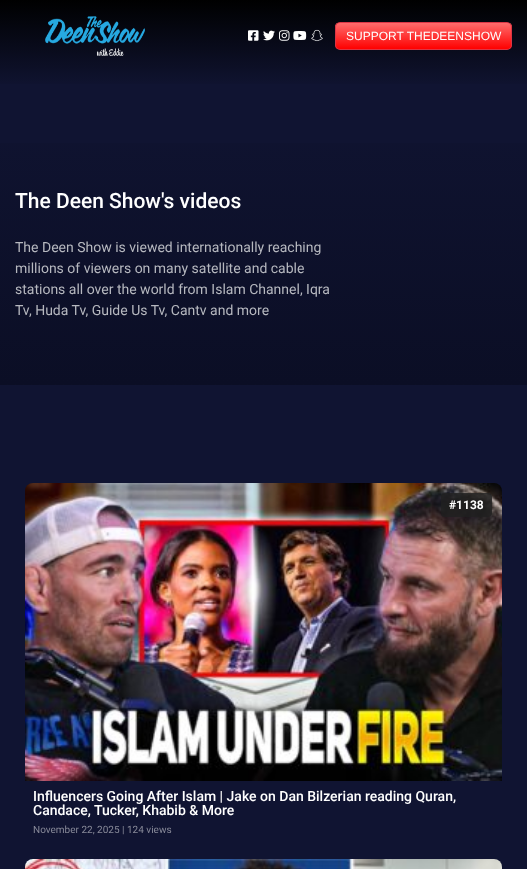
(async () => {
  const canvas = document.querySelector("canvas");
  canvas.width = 527;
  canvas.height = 869;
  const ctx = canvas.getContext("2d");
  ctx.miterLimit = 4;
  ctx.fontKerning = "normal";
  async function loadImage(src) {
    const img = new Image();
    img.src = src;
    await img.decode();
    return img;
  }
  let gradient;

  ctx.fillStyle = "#101432";
  ctx.fillRect(0, 0, 527, 869);
  gradient = ctx.createLinearGradient(264, 0, 264, 88);
  gradient.addColorStop(0, "#000000");
  gradient.addColorStop(1, "#101432");
  ctx.fillStyle = gradient;
  ctx.fillRect(0, 0, 527, 84);
  ctx.drawImage(await loadImage("img/1.png"), 45, 16, 100, 40);
  ctx.drawImage(await loadImage("img/2.png"), 248, 30, 11, 11);
  ctx.drawImage(await loadImage("img/3.png"), 263, 30, 12, 11);
  ctx.drawImage(await loadImage("img/4.png"), 279, 30, 11, 11);
  ctx.drawImage(await loadImage("img/5.png"), 293, 31, 14, 9);
  ctx.drawImage(await loadImage("img/6.png"), 311, 29, 12, 13);
  ctx.save();
  ctx.beginPath();
  ctx.roundRect(335, 22, 177, 28, 5);
  ctx.clip();
  gradient = ctx.createLinearGradient(424, 23, 424, 49);
  gradient.addColorStop(0, "#ff6c6c");
  gradient.addColorStop(1, "#ff0000");
  ctx.fillStyle = gradient;
  ctx.fillRect(335, 23, 177, 26);
  ctx.restore();
  ctx.beginPath();
  ctx.roundRect(335.5, 22.5, 176, 27, 4.5);
  ctx.strokeStyle = "#dc3545";
  ctx.stroke();
  gradient = ctx.createLinearGradient(264, 385, 264, 85);
  gradient.addColorStop(0, "#0b0e25");
  gradient.addColorStop(1, "#101432");
  ctx.fillStyle = gradient;
  ctx.fillRect(0, 143, 527, 242);
  ctx.drawImage(await loadImage("img/7.png"), 25, 483, 477, 298);
  ctx.fillStyle = "rgba(33, 33, 33, 0.8)";
  ctx.beginPath();
  ctx.roundRect(441, 493, 51, 24, 4);
  ctx.fill();
  ctx.drawImage(await loadImage("img/8.png"), 25, 859, 477, 10);
  ctx.font = "12px Liberation Sans";
  ctx.fillStyle = "#ffffff";
  ctx.fillText("SUPPORT THEDEENSHOW", 346, 40);
  ctx.font = "500 21px Roboto";
  ctx.fillText("The Deen Show's videos", 15, 208);
  ctx.font = "14px Roboto";
  ctx.fillStyle = "#b6b8bf";
  for (const [text, x, y] of [
    ["The Deen Show is viewed internationally reaching", 15, 252],
    ["millions of viewers on many satellite and cable", 15, 273],
    ["stations all over the world from Islam Channel, Iqra", 15, 294],
    ["Tv, Huda Tv, Guide Us Tv, Cantv and more", 15, 315],
  ]) {
    ctx.fillText(text, x, y);
  }
  ctx.font = "bold 12px Roboto";
  ctx.fillStyle = "#ffffff";
  ctx.fillText("#1138", 449, 509);
  ctx.font = "500 14px Roboto";
  ctx.fillText("Influencers Going After Islam | Jake on Dan Bilzerian reading Quran,", 33, 801);
  ctx.fillText("Candace, Tucker, Khabib & More", 33, 815);
  ctx.font = "10px Roboto";
  ctx.fillStyle = "#888a99";
  ctx.fillText("November 22, 2025 | 124 views", 33, 833);
})();
